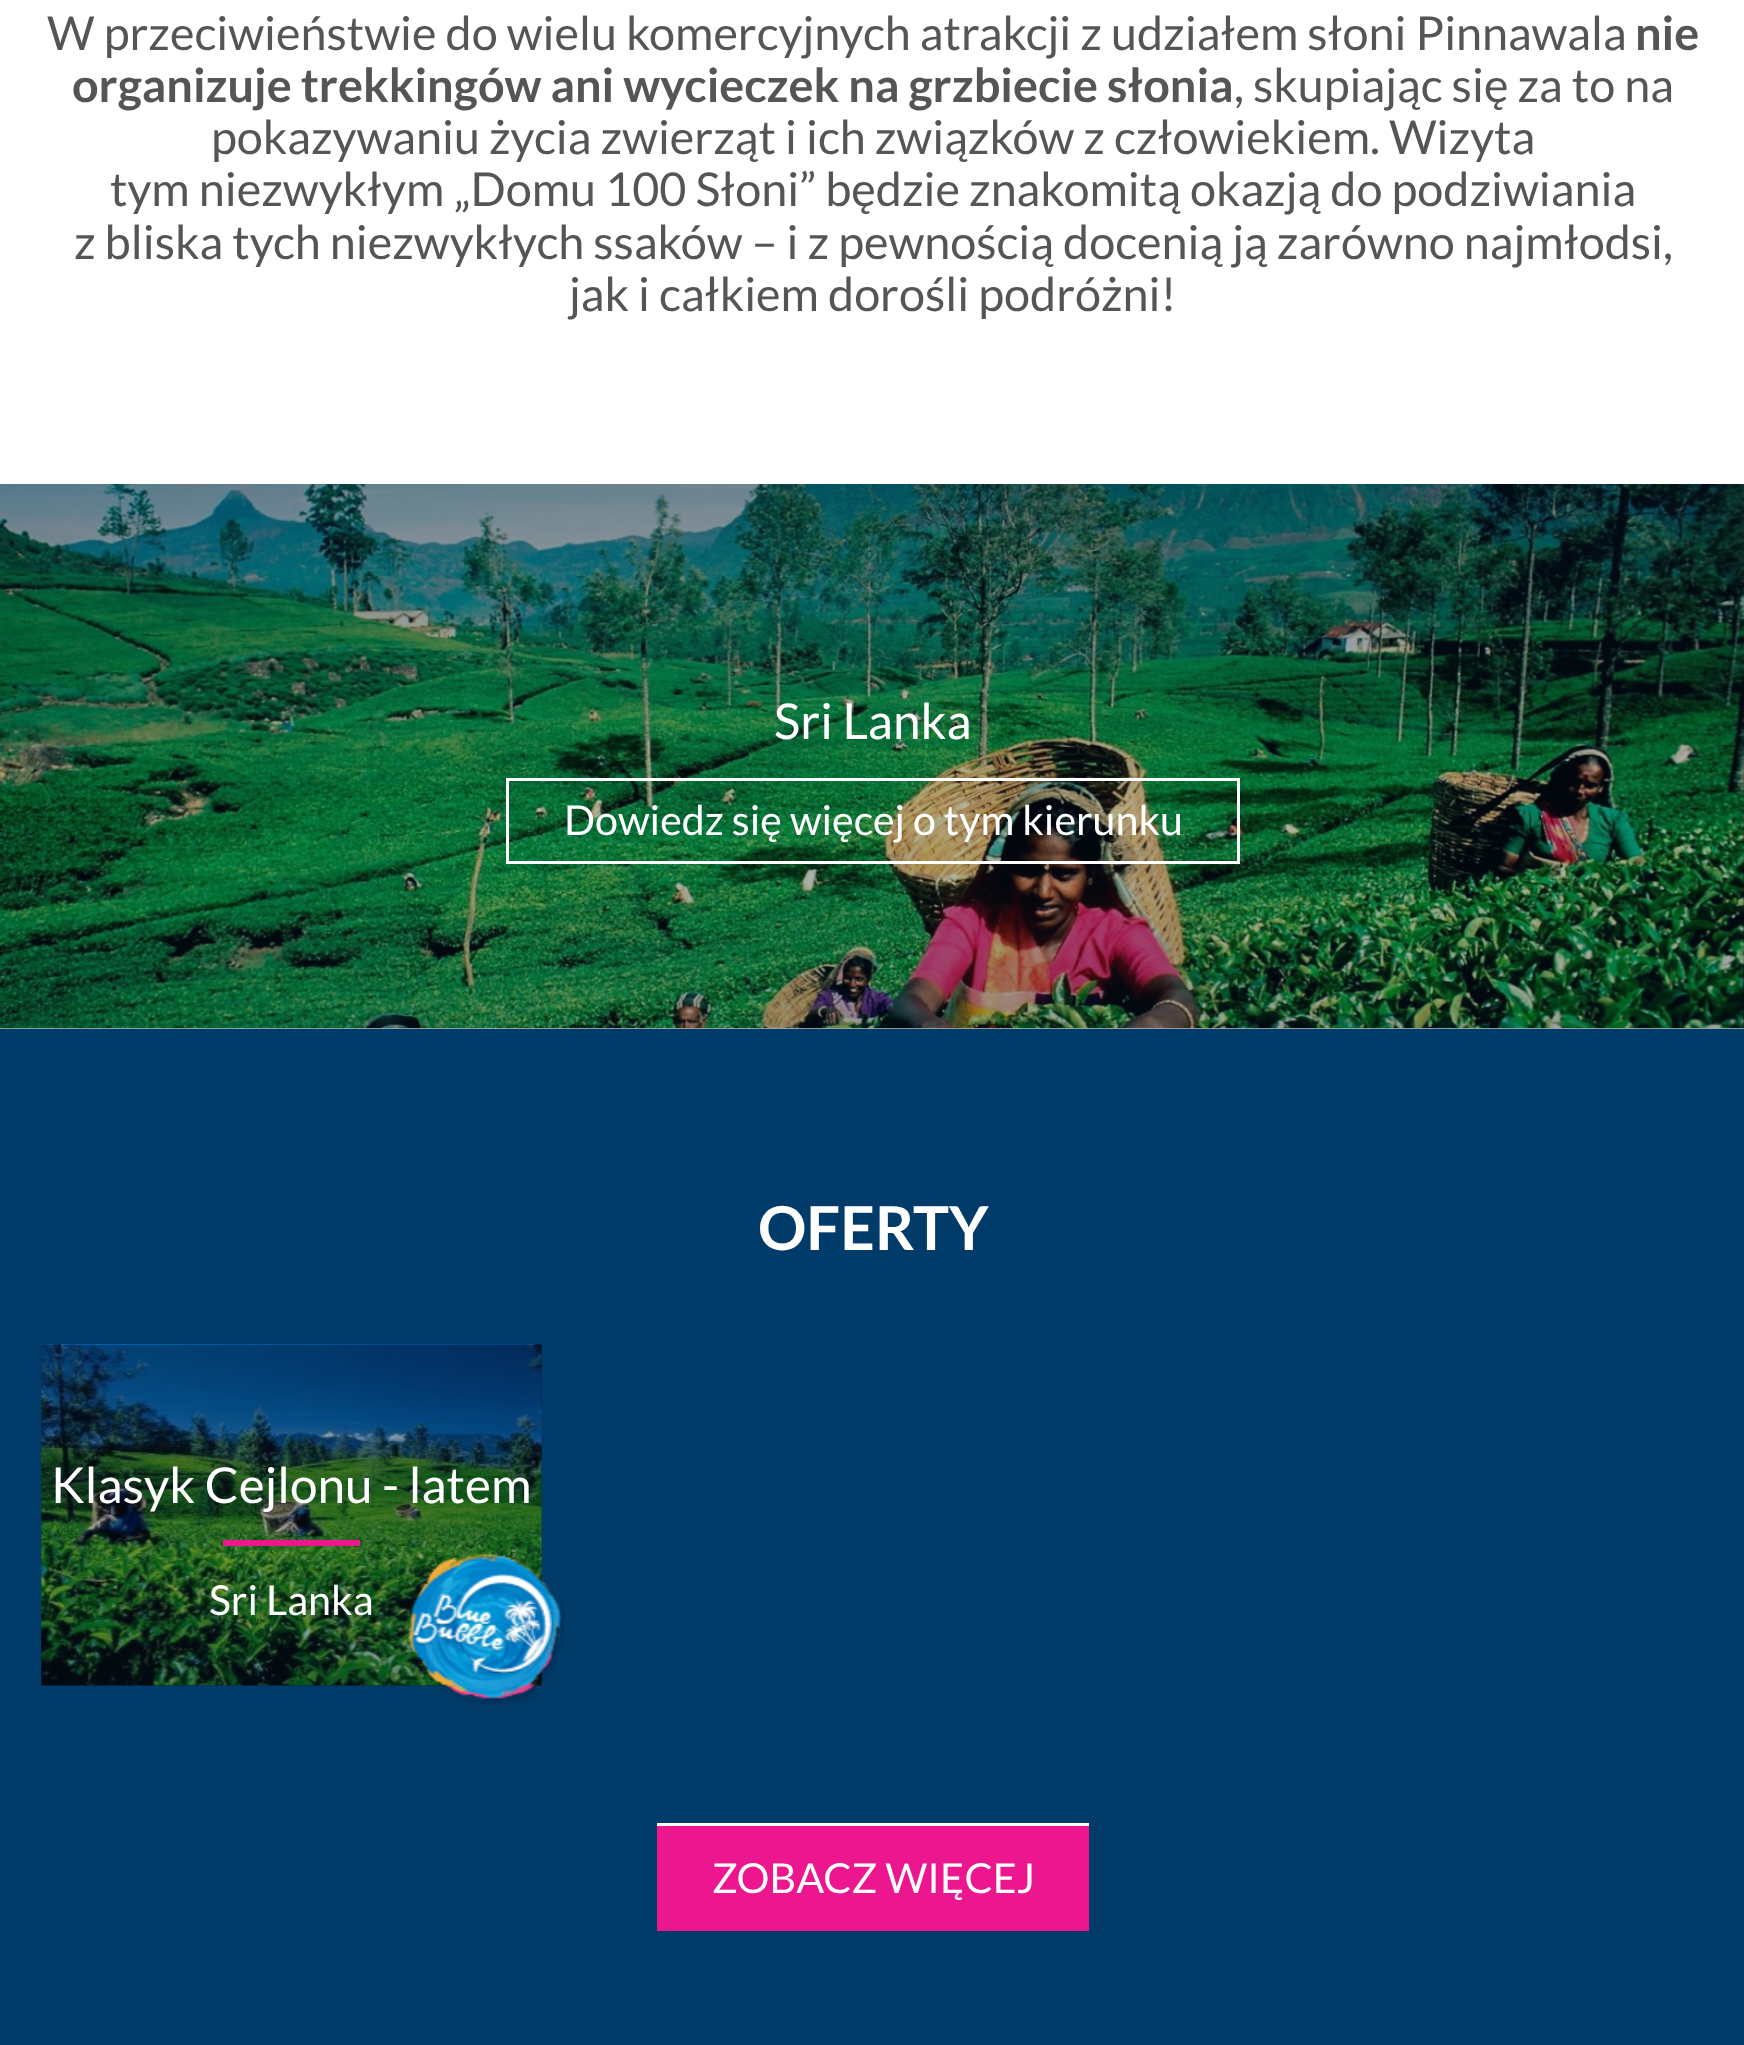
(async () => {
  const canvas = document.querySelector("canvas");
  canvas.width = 1744;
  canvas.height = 2045;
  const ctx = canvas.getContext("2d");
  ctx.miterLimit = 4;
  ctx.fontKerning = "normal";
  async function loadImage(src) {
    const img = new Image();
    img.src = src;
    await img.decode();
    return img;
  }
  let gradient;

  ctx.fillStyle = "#ffffff";
  ctx.fillRect(0, 0, 1744, 2045);
  ctx.drawImage(await loadImage("img/1.png"), 0, 484, 1744, 545);
  gradient = ctx.createLinearGradient(873, 484, 873, 1029);
  gradient.addColorStop(0, "rgba(4, 22, 40, 0.5)");
  gradient.addColorStop(0.6, "rgba(4, 22, 40, 0.3)");
  gradient.addColorStop(1, "rgba(4, 22, 40, 0.4)");
  ctx.fillStyle = gradient;
  ctx.fillRect(0, 484, 1744, 545);
  ctx.strokeStyle = "#ffffff";
  ctx.lineWidth = 3;
  ctx.strokeRect(507.5, 779.5, 731, 83);
  ctx.fillStyle = "#013b69";
  ctx.fillRect(0, 1029, 1744, 1016);
  ctx.drawImage(await loadImage("img/2.png"), 41, 1344, 501, 342);
  gradient = ctx.createLinearGradient(291, 1345, 292, 1686);
  gradient.addColorStop(0, "rgba(4, 22, 40, 0.5)");
  gradient.addColorStop(0.6, "rgba(4, 22, 40, 0.3)");
  gradient.addColorStop(1, "rgba(4, 22, 40, 0.4)");
  ctx.fillStyle = gradient;
  ctx.fillRect(41, 1345, 501, 341);
  ctx.fillStyle = "#ec168e";
  ctx.fillRect(223, 1540, 137, 6);
  ctx.drawImage(await loadImage("img/3.png"), 407, 1554, 158, 151);
  ctx.fillRect(657, 1826, 432, 105);
  ctx.fillStyle = "#ffffff";
  ctx.fillRect(657, 1823, 432, 3);
  ctx.font = "46.75px Lato";
  ctx.fillStyle = "#555555";
  ctx.fillText("W przeciwieństwie do wielu komercyjnych atrakcji z udziałem słoni Pinnawala", 47, 50);
  ctx.font = "bold 46.75px Lato";
  ctx.fillText("nie", 1635, 50);
  ctx.fillText("organizuje trekkingów ani wycieczek na grzbiecie słonia", 72, 102);
  ctx.font = "46.75px Lato";
  for (const [text, x, y] of [
    [", skupiając się za to na", 1234, 102],
    ["pokazywaniu życia zwierząt i ich związków z człowiekiem. Wizyta", 211, 154],
    ["tym niezwykłym „Domu 100 Słoni” będzie znakomitą okazją do podziwiania", 110, 206],
    ["z bliska tych niezwykłych ssaków – i z pewnością docenią ją zarówno najmłodsi,", 74, 259],
    ["jak i całkiem dorośli podróżni!", 569, 311],
  ]) {
    ctx.fillText(text, x, y);
  }
  ctx.font = "49.5px Lato";
  ctx.fillStyle = "#ffffff";
  ctx.fillText("Sri Lanka", 774, 739);
  ctx.font = "41.25px Lato";
  ctx.fillText("Dowiedz się więcej o tym kierunku", 564, 835);
  ctx.font = "bold 60.5px Lato";
  ctx.fillText("OFERTY", 758, 1250);
  ctx.font = "49.5px Lato";
  ctx.fillText("Klasyk Cejlonu - latem", 51, 1503);
  ctx.font = "41.25px Lato";
  ctx.fillText("Sri Lanka", 209, 1615);
  ctx.fillText("ZOBACZ WIĘCEJ", 712, 1893);
})();
